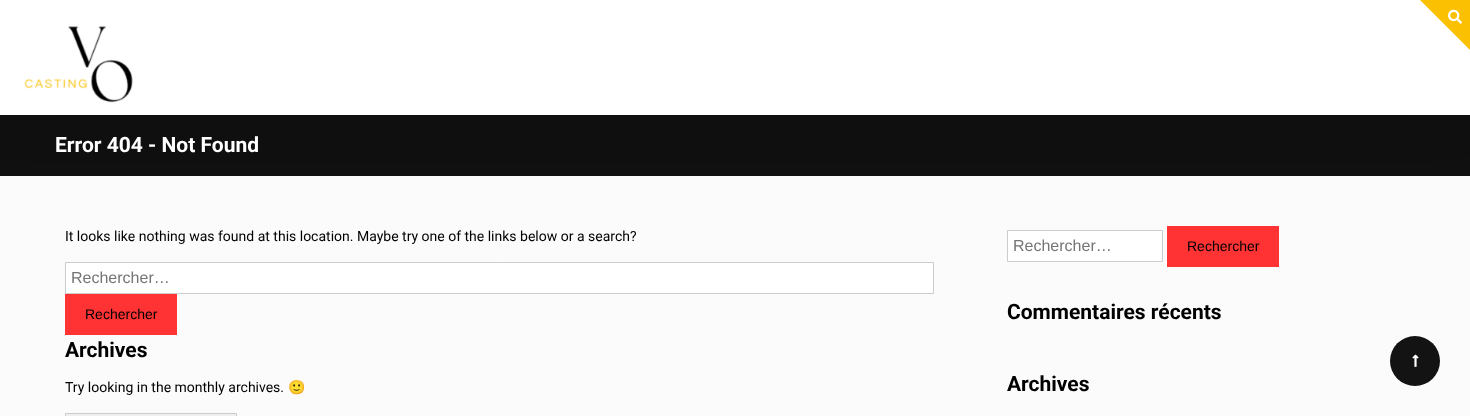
(async () => {
  const canvas = document.querySelector("canvas");
  canvas.width = 1470;
  canvas.height = 416;
  const ctx = canvas.getContext("2d");
  ctx.miterLimit = 4;
  ctx.fontKerning = "normal";
  async function loadImage(src) {
    const img = new Image();
    img.src = src;
    await img.decode();
    return img;
  }
  let path;

  ctx.fillStyle = "#fbfbfb";
  ctx.fillRect(0, 0, 1470, 416);
  ctx.fillStyle = "#101010";
  ctx.fillRect(0, 115, 1470, 61);
  ctx.fillStyle = "rgba(0, 0, 0, 0.14)";
  ctx.filter = "blur(25px)";
  ctx.beginPath();
  ctx.rect(-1, 2, 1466, 111);
  ctx.fill();
  ctx.filter = "none";
  ctx.fillStyle = "#ffffff";
  ctx.beginPath();
  ctx.roundRect(0, 0, 1470, 115, [0, 0, 1, 0]);
  ctx.fill();
  ctx.drawImage(await loadImage("img/1.png"), 24, 26, 109, 77);
  ctx.fillStyle = "#fbc002";
  path = new Path2D("M1420 0H1470V50Z");
  ctx.fill(path);
  ctx.drawImage(await loadImage("img/2.png"), 1448, 9, 14, 15);
  ctx.fillStyle = "#ffffff";
  ctx.beginPath();
  ctx.rect(65.5, 262.5, 868, 31);
  ctx.fill();
  ctx.strokeStyle = "#cccccc";
  ctx.stroke();
  ctx.fillStyle = "#ff3333";
  ctx.fillRect(65, 294, 112, 41);
  ctx.fillStyle = "#efefef";
  ctx.beginPath();
  ctx.rect(65.5, 413.5, 171, 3);
  ctx.fill();
  ctx.stroke();
  ctx.fillStyle = "#ffffff";
  ctx.beginPath();
  ctx.rect(1007.5, 230.5, 155, 31);
  ctx.fill();
  ctx.stroke();
  ctx.fillStyle = "#ff3333";
  ctx.fillRect(1167, 226, 112, 41);
  ctx.fillStyle = "#131313";
  ctx.beginPath();
  ctx.arc(1415, 361, 25, 0, Math.PI * 2);
  ctx.fill();
  ctx.drawImage(await loadImage("img/3.png"), 1412, 354, 7, 13);
  ctx.font = "bold 21px Roboto";
  ctx.fillStyle = "#ffffff";
  ctx.fillText("Error 404 - Not Found", 55, 152);
  ctx.font = "14px Roboto";
  ctx.fillStyle = "#000000";
  ctx.fillText("It looks like nothing was found at this location. Maybe try one of the links below or a search?", 65, 241);
  ctx.font = "16px Liberation Sans";
  ctx.fillStyle = "#757575";
  ctx.fillText("Rechercher…", 71, 283);
  ctx.font = "14px Liberation Sans";
  ctx.fillStyle = "#000000";
  ctx.fillText("Rechercher", 85, 319);
  ctx.font = "bold 21px Roboto";
  ctx.fillText("Archives", 65, 357);
  ctx.font = "14px Roboto";
  ctx.fillText("Try looking in the monthly archives.", 65, 392);
  ctx.font = "14px Noto Color Emoji";
  ctx.fillText("🙂", 288, 392);
  ctx.font = "16px Liberation Sans";
  ctx.fillStyle = "#757575";
  ctx.fillText("Rechercher…", 1013, 251);
  ctx.font = "14px Liberation Sans";
  ctx.fillStyle = "#000000";
  ctx.fillText("Rechercher", 1187, 251);
  ctx.font = "bold 21px Roboto";
  ctx.fillText("Commentaires récents", 1007, 319);
  ctx.fillText("Archives", 1007, 391);
})();
